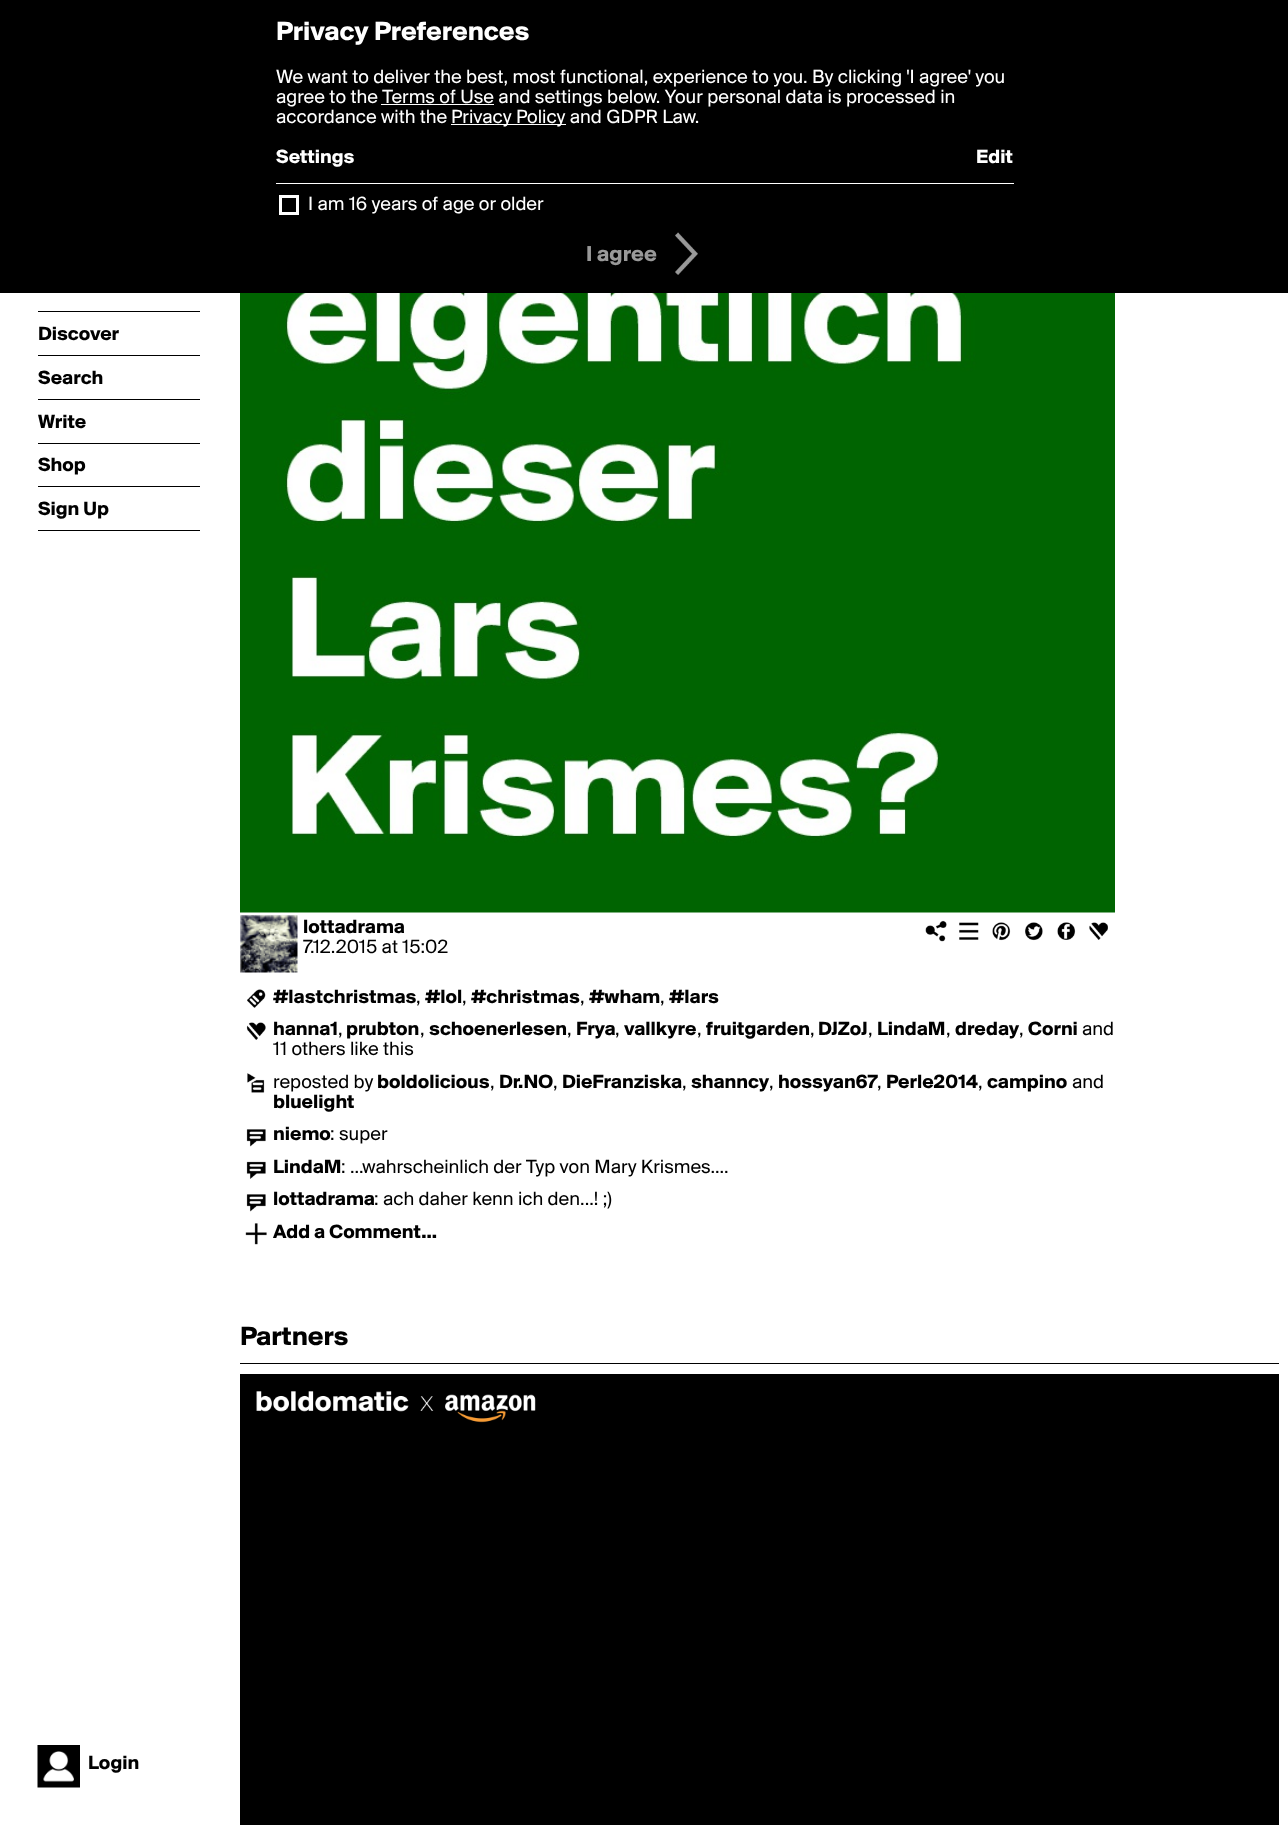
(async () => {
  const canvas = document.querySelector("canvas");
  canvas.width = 1288;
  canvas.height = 1825;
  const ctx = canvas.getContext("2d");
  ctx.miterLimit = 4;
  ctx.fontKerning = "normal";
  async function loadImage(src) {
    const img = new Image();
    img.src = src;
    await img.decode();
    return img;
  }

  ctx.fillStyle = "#ffffff";
  ctx.fillRect(0, 0, 1288, 1825);
  for (const [x, y, w, h, color] of [
    [0, 0, 1288, 293, "#000000"],
    [381, 104, 113, 1, "#ffffff"],
    [451, 124, 115, 1, "#ffffff"],
    [276, 183, 738, 1, "#ffffff"],
  ]) {
    ctx.fillStyle = color;
    ctx.fillRect(x, y, w, h);
  }
  ctx.strokeStyle = "#ffffff";
  ctx.lineWidth = 3;
  ctx.strokeRect(280.5, 196.5, 17, 17);
  ctx.drawImage(await loadImage("img/1.png"), 675, 232, 23, 43);
  for (const [x, y, w, h, color] of [
    [38, 311, 162, 1, "#000000"],
    [38, 355, 162, 1, "#000000"],
    [38, 399, 162, 1, "#000000"],
    [38, 443, 162, 1, "#000000"],
    [38, 486, 162, 1, "#000000"],
    [38, 530, 162, 1, "#000000"],
  ]) {
    ctx.fillStyle = color;
    ctx.fillRect(x, y, w, h);
  }
  ctx.drawImage(await loadImage("img/2.png"), 37, 1745, 43, 43);
  ctx.drawImage(await loadImage("img/3.png"), 240, 293, 875, 620);
  ctx.drawImage(await loadImage("img/4.png"), 240, 915, 58, 58);
  ctx.drawImage(await loadImage("img/5.png"), 925, 920, 22, 22);
  ctx.drawImage(await loadImage("img/6.png"), 959, 922, 20, 18);
  ctx.drawImage(await loadImage("img/7.png"), 992, 922, 19, 19);
  ctx.drawImage(await loadImage("img/8.png"), 1025, 922, 18, 19);
  ctx.drawImage(await loadImage("img/9.png"), 1057, 922, 19, 18);
  ctx.drawImage(await loadImage("img/10.png"), 1089, 922, 19, 18);
  ctx.drawImage(await loadImage("img/11.png"), 247, 989, 19, 19);
  ctx.drawImage(await loadImage("img/12.png"), 246, 1022, 20, 18);
  ctx.drawImage(await loadImage("img/13.png"), 247, 1073, 18, 20);
  ctx.drawImage(await loadImage("img/14.png"), 246, 1129, 20, 18);
  ctx.drawImage(await loadImage("img/15.png"), 246, 1161, 20, 18);
  ctx.drawImage(await loadImage("img/14.png"), 246, 1194, 20, 18);
  ctx.drawImage(await loadImage("img/16.png"), 245, 1223, 22, 22);
  ctx.fillRect(240, 1363, 1039, 1);
  ctx.fillRect(240, 1374, 1039, 451);
  ctx.drawImage(await loadImage("img/17.png"), 256, 1391, 280, 32);
  ctx.font = "bold 27.5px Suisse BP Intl";
  ctx.fillStyle = "#ffffff";
  ctx.fillText("Privacy Preferences", 276, 40);
  ctx.font = "20px Suisse BP Intl";
  for (const [text, x, y] of [
    ["We want to deliver the best, most functional, experience to you. By clicking 'I agree' you", 276, 83],
    ["agree to the Terms of Use and settings below. Your personal data is processed in", 276, 103],
    ["accordance with the", 276, 123],
    ["Privacy Policy and GDPR Law.", 451, 123],
  ]) {
    ctx.fillText(text, x, y);
  }
  ctx.font = "bold 20px Suisse BP Intl";
  ctx.fillText("Settings", 276, 163);
  ctx.fillText("Edit", 976, 163);
  ctx.font = "20px Suisse BP Intl";
  ctx.fillText("I am 16 years of age or older", 308, 210);
  ctx.font = "bold 22.5px Suisse BP Intl";
  ctx.fillStyle = "#999999";
  ctx.fillText("I agree", 586, 261);
  ctx.font = "bold 20px Suisse BP Intl";
  ctx.fillStyle = "#000000";
  for (const [text, x, y] of [
    ["Discover", 38, 340],
    ["Search", 38, 384],
    ["Write", 38, 428],
    ["Shop", 38, 471],
    ["Sign Up", 38, 515],
    ["Login", 88, 1769],
    ["lottadrama", 303, 933],
  ]) {
    ctx.fillText(text, x, y);
  }
  ctx.font = "20px Suisse BP Intl";
  ctx.fillText("7.12.2015 at 15:02", 303, 953);
  ctx.font = "bold 20px Suisse BP Intl";
  ctx.fillText("#lastchristmas", 273, 1003);
  ctx.font = "20px Suisse BP Intl";
  ctx.fillText(",", 416, 1003);
  ctx.font = "bold 20px Suisse BP Intl";
  ctx.fillText("#lol", 425, 1003);
  ctx.font = "20px Suisse BP Intl";
  ctx.fillText(",", 462, 1003);
  ctx.font = "bold 20px Suisse BP Intl";
  ctx.fillText("#christmas", 471, 1003);
  ctx.font = "20px Suisse BP Intl";
  ctx.fillText(",", 580, 1003);
  ctx.font = "bold 20px Suisse BP Intl";
  ctx.fillText("#wham", 589, 1003);
  ctx.font = "20px Suisse BP Intl";
  ctx.fillText(",", 660, 1003);
  ctx.font = "bold 20px Suisse BP Intl";
  ctx.fillText("#lars", 669, 1003);
  ctx.fillText("hanna1", 273, 1035);
  ctx.font = "20px Suisse BP Intl";
  ctx.fillText(",", 338, 1035);
  ctx.font = "bold 20px Suisse BP Intl";
  ctx.fillText("prubton", 346, 1035);
  ctx.font = "20px Suisse BP Intl";
  ctx.fillText(",", 420, 1035);
  ctx.font = "bold 20px Suisse BP Intl";
  ctx.fillText("schoenerlesen", 429, 1035);
  ctx.font = "20px Suisse BP Intl";
  ctx.fillText(",", 567, 1035);
  ctx.font = "bold 20px Suisse BP Intl";
  ctx.fillText("Frya", 576, 1035);
  ctx.font = "20px Suisse BP Intl";
  ctx.fillText(",", 615, 1035);
  ctx.font = "bold 20px Suisse BP Intl";
  ctx.fillText("vallkyre", 624, 1035);
  ctx.font = "20px Suisse BP Intl";
  ctx.fillText(",", 697, 1035);
  ctx.font = "bold 20px Suisse BP Intl";
  ctx.fillText("fruitgarden", 706, 1035);
  ctx.font = "20px Suisse BP Intl";
  ctx.fillText(",", 810, 1035);
  ctx.font = "bold 20px Suisse BP Intl";
  ctx.fillText("DJZoJ", 818, 1035);
  ctx.font = "20px Suisse BP Intl";
  ctx.fillText(",", 868, 1035);
  ctx.font = "bold 20px Suisse BP Intl";
  ctx.fillText("LindaM", 877, 1035);
  ctx.font = "20px Suisse BP Intl";
  ctx.fillText(",", 946, 1035);
  ctx.font = "bold 20px Suisse BP Intl";
  ctx.fillText("dreday", 955, 1035);
  ctx.font = "20px Suisse BP Intl";
  ctx.fillText(",", 1019, 1035);
  ctx.font = "bold 20px Suisse BP Intl";
  ctx.fillText("Corni", 1028, 1035);
  ctx.font = "20px Suisse BP Intl";
  for (const [text, x, y] of [
    ["and", 1082, 1035],
    ["11 others like this", 273, 1055],
    ["reposted by", 273, 1088],
  ]) {
    ctx.fillText(text, x, y);
  }
  ctx.font = "bold 20px Suisse BP Intl";
  ctx.fillText("boldolicious", 377, 1088);
  ctx.font = "20px Suisse BP Intl";
  ctx.fillText(",", 490, 1088);
  ctx.font = "bold 20px Suisse BP Intl";
  ctx.fillText("Dr.NO", 499, 1088);
  ctx.font = "20px Suisse BP Intl";
  ctx.fillText(",", 553, 1088);
  ctx.font = "bold 20px Suisse BP Intl";
  ctx.fillText("DieFranziska", 562, 1088);
  ctx.font = "20px Suisse BP Intl";
  ctx.fillText(",", 682, 1088);
  ctx.font = "bold 20px Suisse BP Intl";
  ctx.fillText("shanncy", 691, 1088);
  ctx.font = "20px Suisse BP Intl";
  ctx.fillText(",", 769, 1088);
  ctx.font = "bold 20px Suisse BP Intl";
  ctx.fillText("hossyan67", 778, 1088);
  ctx.font = "20px Suisse BP Intl";
  ctx.fillText(",", 877, 1088);
  ctx.font = "bold 20px Suisse BP Intl";
  ctx.fillText("Perle2014", 886, 1088);
  ctx.font = "20px Suisse BP Intl";
  ctx.fillText(",", 978, 1088);
  ctx.font = "bold 20px Suisse BP Intl";
  ctx.fillText("campino", 987, 1088);
  ctx.font = "20px Suisse BP Intl";
  ctx.fillText("and", 1072, 1088);
  ctx.font = "bold 20px Suisse BP Intl";
  ctx.fillText("bluelight", 273, 1108);
  ctx.fillText("niemo", 273, 1140);
  ctx.font = "20px Suisse BP Intl";
  ctx.fillText(": super", 330, 1140);
  ctx.font = "bold 20px Suisse BP Intl";
  ctx.fillText("LindaM", 273, 1173);
  ctx.font = "20px Suisse BP Intl";
  ctx.fillText(": ...wahrscheinlich der Typ von Mary Krismes....", 341, 1173);
  ctx.font = "bold 20px Suisse BP Intl";
  ctx.fillText("lottadrama", 273, 1205);
  ctx.font = "20px Suisse BP Intl";
  ctx.fillText(": ach daher kenn ich den...! ;)", 374, 1205);
  ctx.font = "bold 20px Suisse BP Intl";
  ctx.fillText("Add a Comment...", 273, 1238);
  ctx.font = "bold 27.5px Suisse BP Intl";
  ctx.fillText("Partners", 240, 1345);
})();
